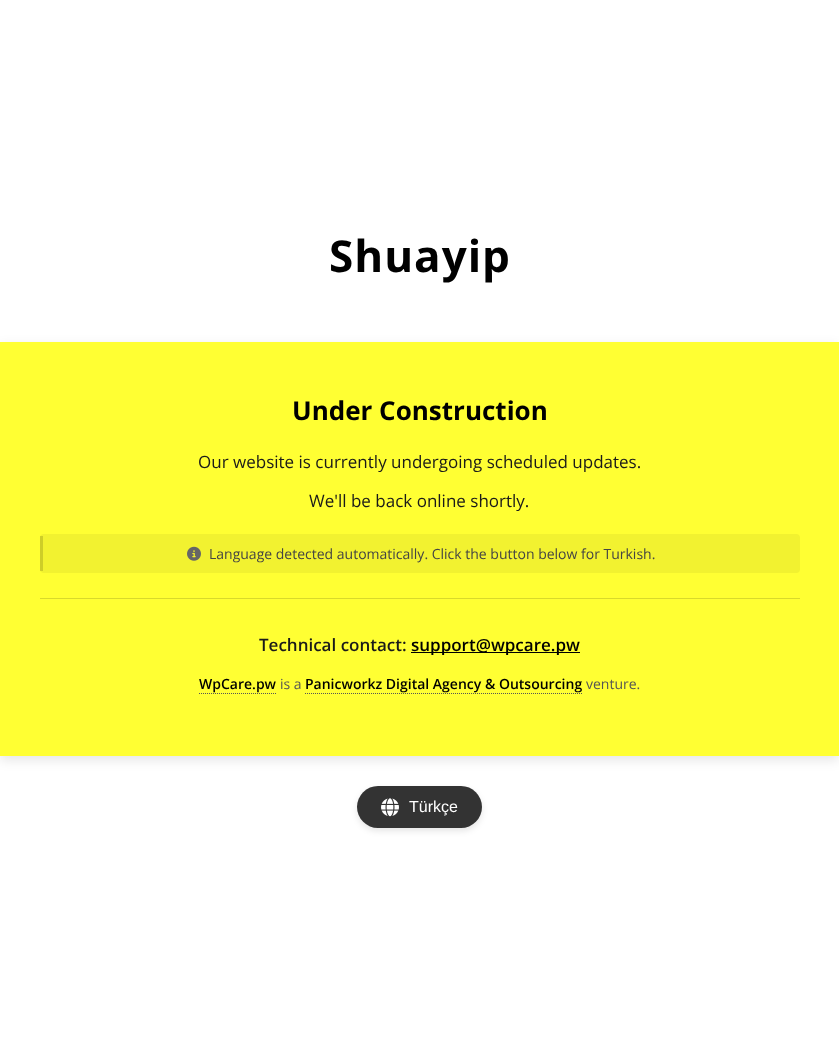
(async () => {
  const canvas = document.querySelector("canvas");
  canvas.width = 839;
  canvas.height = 1037;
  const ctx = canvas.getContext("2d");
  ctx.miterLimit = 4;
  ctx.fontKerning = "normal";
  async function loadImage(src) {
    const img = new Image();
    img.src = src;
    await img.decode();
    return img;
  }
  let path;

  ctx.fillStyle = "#ffffff";
  ctx.fillRect(0, 0, 839, 1037);
  ctx.fillStyle = "rgba(0, 0, 0, 0.1)";
  ctx.filter = "blur(6px)";
  ctx.beginPath();
  ctx.rect(0, 346, 839, 414);
  ctx.fill();
  ctx.filter = "none";
  ctx.fillStyle = "#ffff33";
  ctx.fillRect(0, 342, 839, 414);
  ctx.fillStyle = "#f2f230";
  ctx.beginPath();
  ctx.roundRect(40, 534, 760, 39, 4);
  ctx.fill();
  ctx.fillStyle = "rgba(0, 0, 0, 0.15)";
  ctx.fillRect(40, 536, 3, 35);
  ctx.drawImage(await loadImage("img/1.png"), 187, 546, 14, 15);
  ctx.fillStyle = "#d9d92b";
  ctx.fillRect(40, 598, 760, 1);
  ctx.fillStyle = "#000000";
  ctx.fillRect(411, 652, 169, 1);
  path = new Path2D("M199 693.5H276");
  ctx.strokeStyle = "#555555";
  ctx.setLineDash([1, 1]);
  ctx.stroke(path);
  path = new Path2D("M305 693.5H582");
  ctx.stroke(path);
  ctx.fillStyle = "rgba(0, 0, 0, 0.1)";
  ctx.filter = "blur(3px)";
  ctx.beginPath();
  ctx.roundRect(357, 789, 125, 42, 21);
  ctx.fill();
  ctx.filter = "none";
  ctx.fillStyle = "#333333";
  ctx.beginPath();
  ctx.roundRect(357, 786, 125, 42, 21);
  ctx.fill();
  ctx.drawImage(await loadImage("img/2.png"), 381, 798, 18, 19);
  ctx.letterSpacing = "1px";
  ctx.font = "bold 44px Open Sans";
  ctx.fillStyle = "#000000";
  ctx.fillText("Shuayip", 329, 272);
  ctx.letterSpacing = "0px";
  ctx.font = "bold 26px Open Sans";
  ctx.fillText("Under Construction", 292, 420);
  ctx.font = "17px Open Sans";
  ctx.fillStyle = "#1a1a1a";
  ctx.fillText("Our website is currently undergoing scheduled updates.", 198, 468);
  ctx.fillText("We'll be back online shortly.", 309, 507);
  ctx.font = "14px Open Sans";
  ctx.fillStyle = "#444444";
  ctx.fillText("Language detected automatically. Click the button below for Turkish.", 209, 559);
  ctx.font = "600 17px Open Sans";
  ctx.fillStyle = "#1a1a1a";
  ctx.fillText("Technical contact:", 259, 651);
  ctx.fillStyle = "#000000";
  ctx.fillText("support@wpcare.pw", 411, 651);
  ctx.font = "600 14px Open Sans";
  ctx.fillText("WpCare.pw", 199, 689);
  ctx.font = "14px Open Sans";
  ctx.fillStyle = "#555555";
  ctx.fillText("is a", 280, 689);
  ctx.font = "600 14px Open Sans";
  ctx.fillStyle = "#000000";
  ctx.fillText("Panicworkz Digital Agency & Outsourcing", 305, 689);
  ctx.font = "14px Open Sans";
  ctx.fillStyle = "#555555";
  ctx.fillText("venture.", 586, 689);
  ctx.font = "16px Liberation Sans";
  ctx.fillStyle = "#ffffff";
  ctx.fillText("Türkçe", 409, 812);
})();
